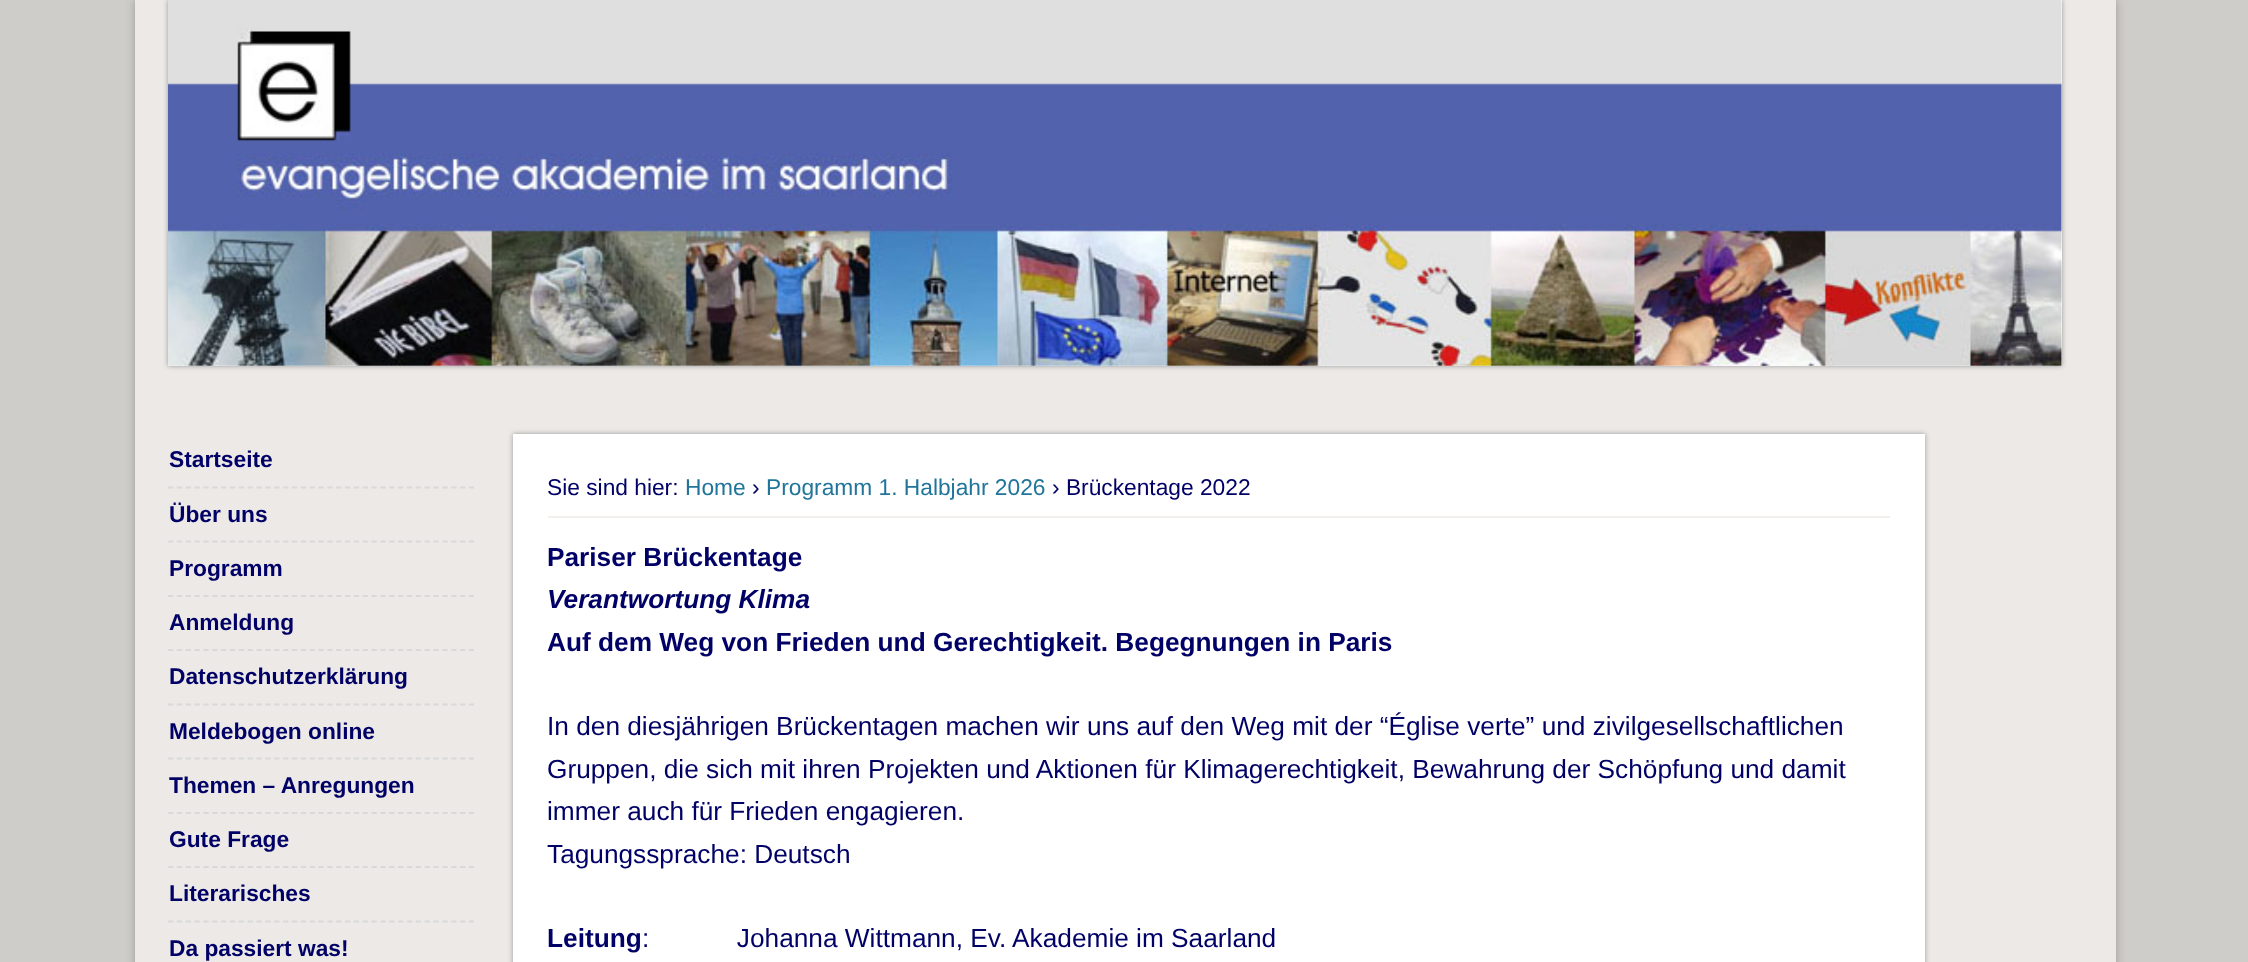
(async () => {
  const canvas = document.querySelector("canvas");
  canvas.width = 2248;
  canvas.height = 962;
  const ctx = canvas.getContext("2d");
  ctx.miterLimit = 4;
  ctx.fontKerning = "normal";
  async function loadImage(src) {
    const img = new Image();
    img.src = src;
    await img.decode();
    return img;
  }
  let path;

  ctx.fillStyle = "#cfcdc9";
  ctx.fillRect(0, 0, 2248, 962);
  ctx.fillStyle = "#999999";
  ctx.filter = "blur(5px)";
  ctx.beginPath();
  ctx.rect(135, 0, 1981, 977);
  ctx.fill();
  ctx.filter = "none";
  ctx.fillStyle = "#ece9e6";
  ctx.fillRect(135, 0, 1981, 962);
  ctx.fillStyle = "#999999";
  ctx.filter = "blur(2.5px)";
  ctx.beginPath();
  ctx.rect(168, 0, 1894, 366);
  ctx.fill();
  ctx.filter = "none";
  ctx.fillStyle = "#ffffff";
  ctx.fillRect(168, 0, 1894, 366);
  ctx.drawImage(await loadImage("img/1.png"), 168, 0, 1894, 366);
  path = new Path2D("M168 487.5H474");
  ctx.strokeStyle = "#d9d9d9";
  ctx.lineWidth = 1.8;
  ctx.setLineDash([5.25, 3.6]);
  ctx.stroke(path);
  path = new Path2D("M168 541.5H474");
  ctx.stroke(path);
  path = new Path2D("M168 596H474");
  ctx.stroke(path);
  path = new Path2D("M168 650H474");
  ctx.stroke(path);
  path = new Path2D("M168 704.5H474");
  ctx.stroke(path);
  path = new Path2D("M168 758.5H474");
  ctx.stroke(path);
  path = new Path2D("M168 813H474");
  ctx.stroke(path);
  path = new Path2D("M168 867H474");
  ctx.stroke(path);
  path = new Path2D("M168 921.5H474");
  ctx.stroke(path);
  ctx.fillStyle = "#999999";
  ctx.filter = "blur(2.5px)";
  ctx.beginPath();
  ctx.rect(513, 434, 1412, 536);
  ctx.fill();
  ctx.filter = "none";
  ctx.fillStyle = "#ffffff";
  ctx.fillRect(513, 434, 1412, 528);
  ctx.fillStyle = "#f3efec";
  ctx.fillRect(548, 516, 1342, 2);
  ctx.font = "bold 22.75px Liberation Sans";
  ctx.fillStyle = "#000066";
  for (const [text, x, y] of [
    ["Startseite", 169, 467],
    ["Über uns", 169, 522],
    ["Programm", 169, 576],
    ["Anmeldung", 169, 630],
    ["Datenschutzerklärung", 169, 684],
    ["Meldebogen online", 169, 739],
    ["Themen – Anregungen", 169, 793],
    ["Gute Frage", 169, 847],
    ["Literarisches", 169, 901],
    ["Da passiert was!", 169, 956],
  ]) {
    ctx.fillText(text, x, y);
  }
  ctx.font = "22.75px Liberation Sans";
  ctx.fillText("Sie sind hier:", 547, 495);
  ctx.fillStyle = "#21759b";
  ctx.fillText("Home", 685, 495);
  ctx.fillStyle = "#000066";
  ctx.fillText("›", 752, 495);
  ctx.fillStyle = "#21759b";
  ctx.fillText("Programm 1. Halbjahr 2026", 766, 495);
  ctx.fillStyle = "#000066";
  ctx.fillText("› Brückentage 2022", 1052, 495);
  ctx.font = "bold 26.25px Liberation Sans";
  ctx.fillText("Pariser Brückentage", 547, 566);
  ctx.font = "italic bold 26.25px Liberation Sans";
  ctx.fillText("Verantwortung Klima", 547, 608);
  ctx.font = "bold 26.25px Liberation Sans";
  ctx.fillText("Auf dem Weg von Frieden und Gerechtigkeit. Begegnungen in Paris", 547, 651);
  ctx.font = "26.25px Liberation Sans";
  for (const [text, x, y] of [
    ["In den diesjährigen Brückentagen machen wir uns auf den Weg mit der “Église verte” und zivilgesellschaftlichen", 547, 735],
    ["Gruppen, die sich mit ihren Projekten und Aktionen für Klimagerechtigkeit, Bewahrung der Schöpfung und damit", 547, 778],
    ["immer auch für Frieden engagieren.", 547, 820],
    ["Tagungssprache: Deutsch", 547, 863],
  ]) {
    ctx.fillText(text, x, y);
  }
  ctx.font = "bold 26.25px Liberation Sans";
  ctx.fillText("Leitung", 547, 947);
  ctx.font = "26.25px Liberation Sans";
  ctx.fillText(":            Johanna Wittmann, Ev. Akademie im Saarland", 642, 947);
})();
